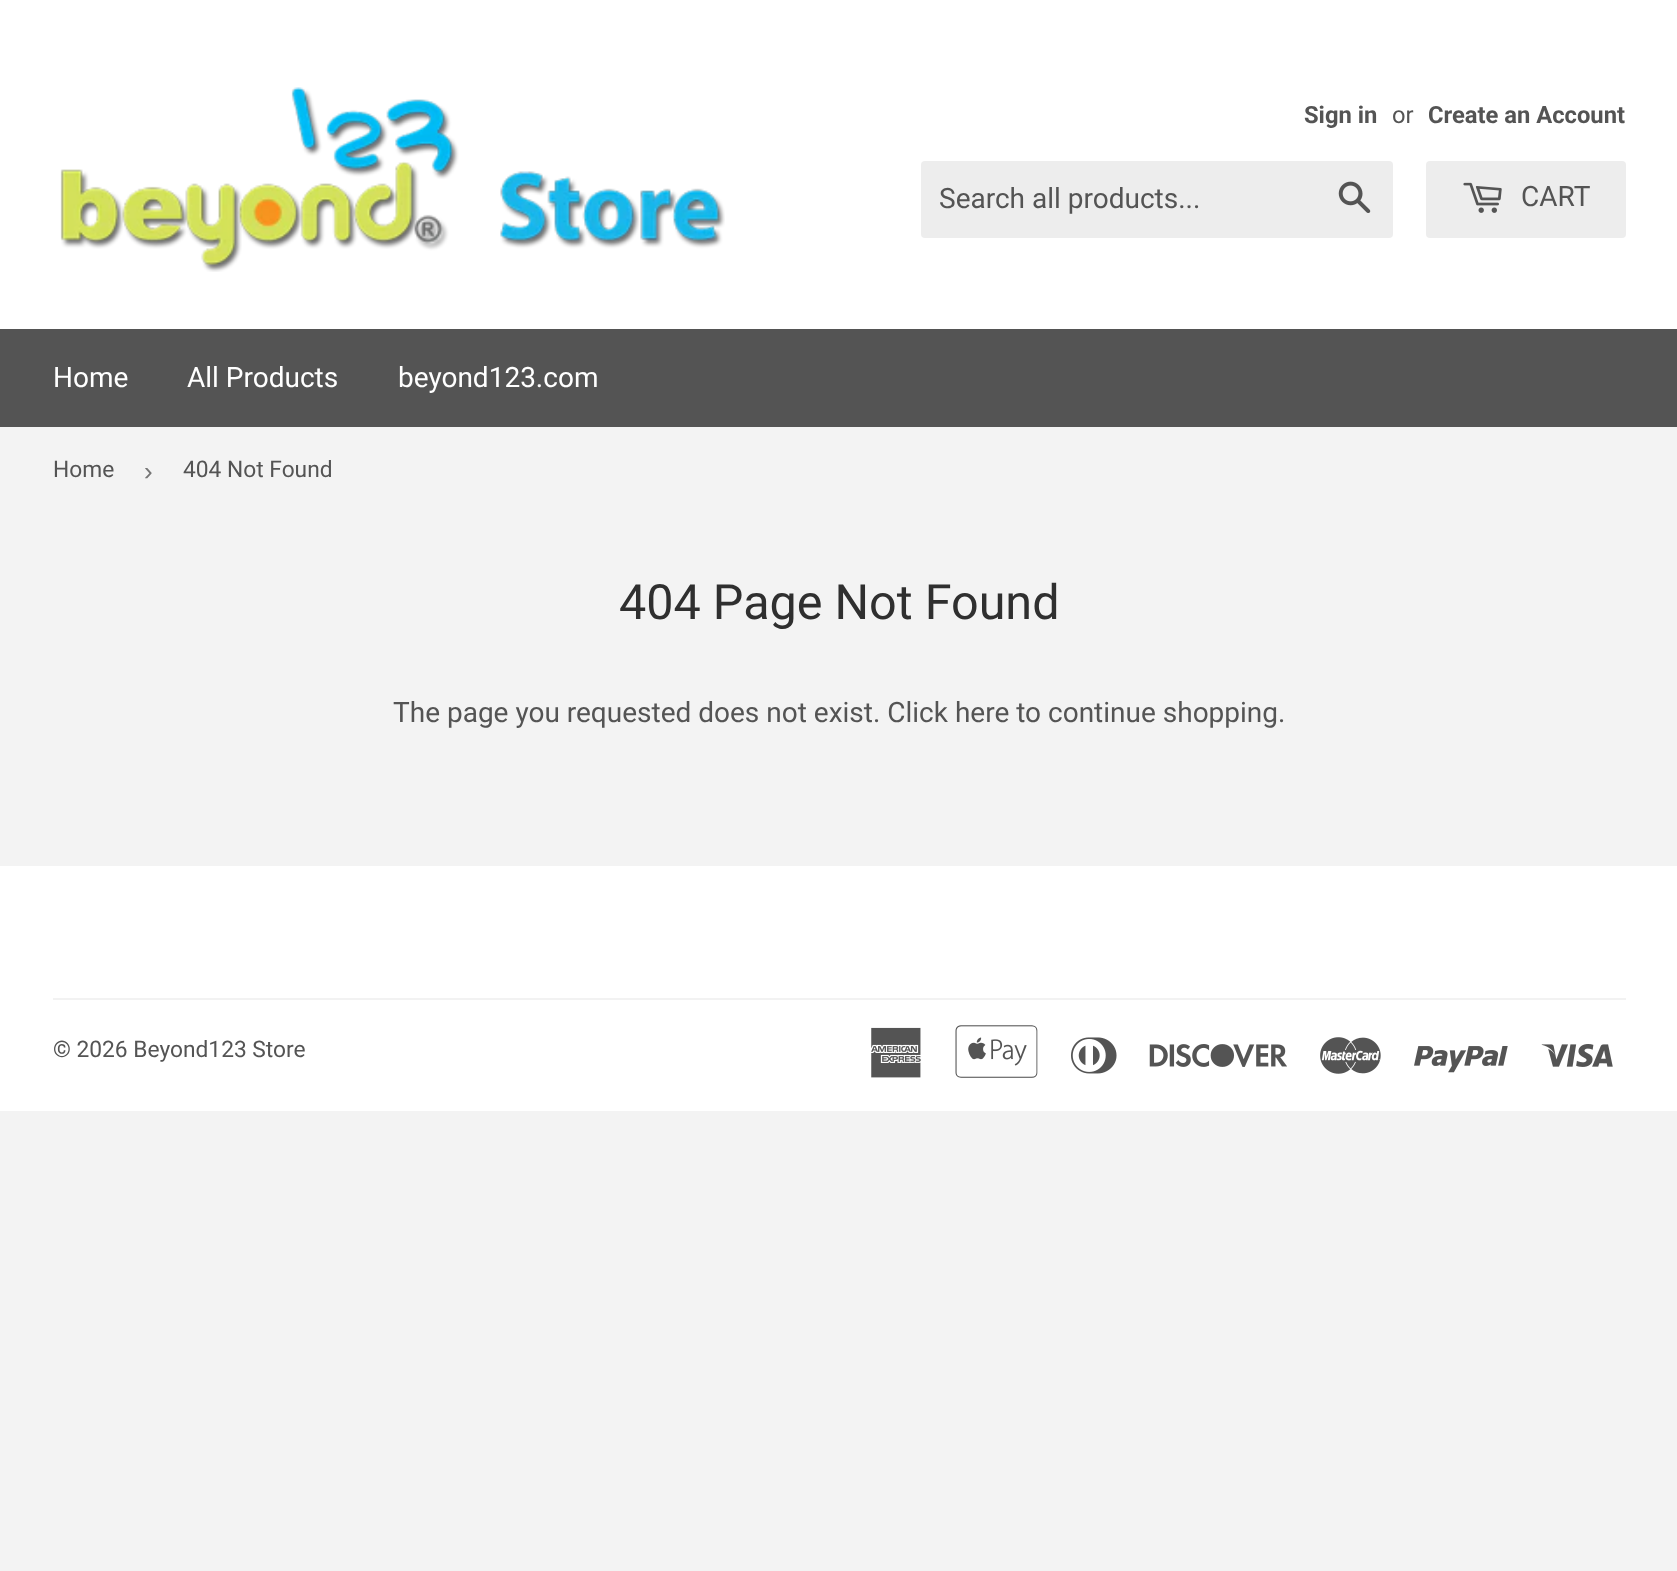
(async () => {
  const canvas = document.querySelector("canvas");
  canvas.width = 1677;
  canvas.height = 1571;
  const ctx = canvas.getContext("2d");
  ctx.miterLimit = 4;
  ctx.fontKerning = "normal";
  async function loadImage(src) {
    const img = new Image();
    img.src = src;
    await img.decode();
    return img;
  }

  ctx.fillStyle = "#f3f3f3";
  ctx.fillRect(0, 0, 1677, 1571);
  ctx.fillStyle = "#ffffff";
  ctx.fillRect(0, 0, 1677, 329);
  ctx.drawImage(await loadImage("img/1.png"), 60, 87, 665, 185);
  ctx.fillStyle = "#ededed";
  ctx.beginPath();
  ctx.roundRect(921, 161, 472, 77, 4);
  ctx.fill();
  ctx.drawImage(await loadImage("img/2.png"), 1338, 181, 33, 32);
  ctx.beginPath();
  ctx.roundRect(1426, 161, 200, 77, 4);
  ctx.fill();
  ctx.drawImage(await loadImage("img/3.png"), 1463, 182, 39, 31);
  for (const [x, y, w, h, color] of [
    [0, 329, 1677, 98, "#545454"],
    [0, 866, 1677, 245, "#ffffff"],
    [53, 998, 1573, 2, "#f2f2f2"],
  ]) {
    ctx.fillStyle = color;
    ctx.fillRect(x, y, w, h);
  }
  ctx.drawImage(await loadImage("img/4.png"), 871, 1027, 50, 51);
  ctx.drawImage(await loadImage("img/5.png"), 955, 1025, 83, 53);
  ctx.drawImage(await loadImage("img/6.png"), 1071, 1037, 46, 37);
  ctx.drawImage(await loadImage("img/7.png"), 1149, 1044, 138, 23);
  ctx.drawImage(await loadImage("img/8.png"), 1320, 1037, 61, 37);
  ctx.drawImage(await loadImage("img/9.png"), 1414, 1046, 94, 27);
  ctx.drawImage(await loadImage("img/10.png"), 1541, 1044, 72, 23);
  ctx.font = "bold 23.75px Roboto";
  ctx.fillStyle = "#545454";
  ctx.fillText("Sign in", 1304, 123);
  ctx.font = "23.75px Roboto";
  ctx.fillText("or", 1392, 123);
  ctx.font = "bold 23.75px Roboto";
  ctx.fillText("Create an Account", 1428, 123);
  ctx.font = "28px Roboto";
  ctx.fillText("Search all products...", 939, 208);
  ctx.fillText("CART", 1521, 206);
  ctx.fillStyle = "#ffffff";
  for (const [text, x, y] of [
    ["Home", 53, 387],
    ["All Products", 187, 387],
    ["beyond123.com", 398, 387],
  ]) {
    ctx.fillText(text, x, y);
  }
  ctx.font = "22.75px Roboto";
  ctx.fillStyle = "#545454";
  ctx.fillText("Home", 53, 477);
  ctx.font = "26px Liberation Sans";
  ctx.fillStyle = "#767676";
  ctx.fillText("›", 144, 480);
  ctx.font = "22.75px Roboto";
  ctx.fillStyle = "#545454";
  ctx.fillText("404 Not Found", 183, 477);
  ctx.font = "48.5px Roboto";
  ctx.fillStyle = "#2f2f2f";
  ctx.fillText("404 Page Not Found", 619, 619);
  ctx.font = "28px Roboto";
  ctx.fillStyle = "#545454";
  ctx.fillText("The page you requested does not exist. Click here to continue shopping.", 393, 722);
  ctx.font = "22.75px Roboto";
  ctx.fillText("© 2026 Beyond123 Store", 53, 1057);
})();
